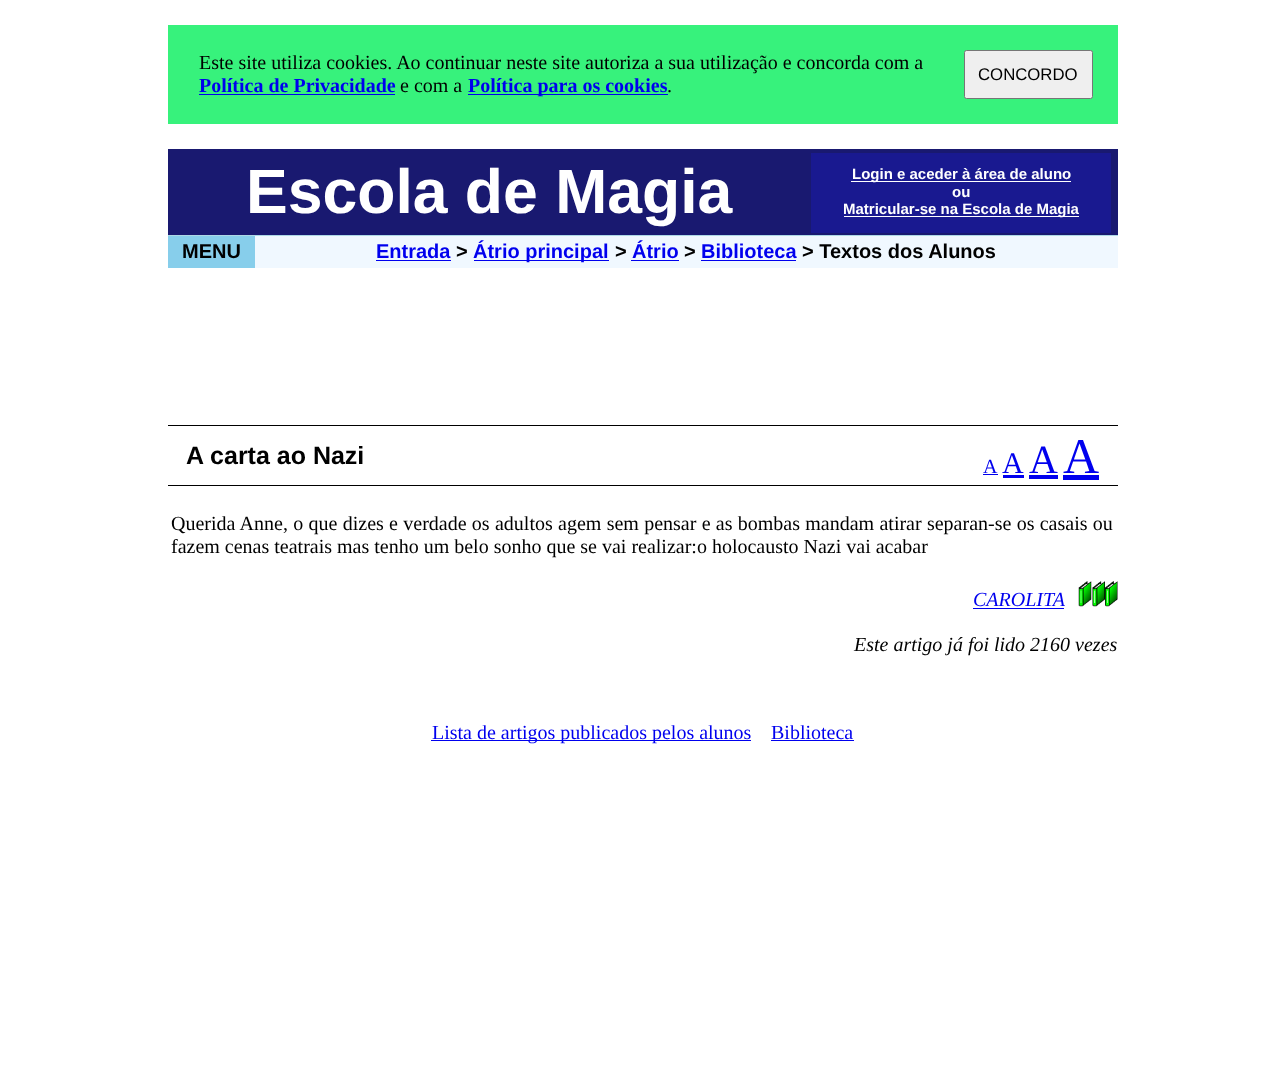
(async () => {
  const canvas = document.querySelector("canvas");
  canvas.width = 1285;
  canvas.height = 1078;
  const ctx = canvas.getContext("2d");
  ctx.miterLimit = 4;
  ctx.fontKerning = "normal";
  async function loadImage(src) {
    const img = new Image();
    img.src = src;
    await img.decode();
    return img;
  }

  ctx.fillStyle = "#ffffff";
  ctx.fillRect(0, 0, 1285, 1078);
  for (const [x, y, w, h, color] of [
    [168, 25, 950, 99, "#37f27c"],
    [199, 94, 196, 1, "#0000ee"],
    [468, 94, 200, 1, "#0000ee"],
  ]) {
    ctx.fillStyle = color;
    ctx.fillRect(x, y, w, h);
  }
  ctx.fillStyle = "#efefef";
  ctx.beginPath();
  ctx.roundRect(964.5, 50.5, 128, 48, 2);
  ctx.fill();
  ctx.strokeStyle = "#767676";
  ctx.stroke();
  for (const [x, y, w, h, color] of [
    [168, 149, 950, 86, "#191970"],
    [168, 235, 950, 1, "#add8e6"],
    [811, 153, 300, 80, "#191990"],
    [851, 181, 220, 1, "#ffffff"],
    [844, 216, 235, 1, "#ffffff"],
    [168, 236, 87, 32, "#87ceeb"],
    [255, 236, 863, 32, "#f0f8ff"],
    [376, 260, 75, 1, "#0000ee"],
    [474, 260, 135, 1, "#0000ee"],
    [631, 260, 48, 1, "#0000ee"],
    [701, 260, 95, 1, "#0000ee"],
    [168, 425, 950, 1, "#000000"],
    [168, 485, 950, 1, "#000000"],
    [983, 474, 15, 1, "#0000ee"],
    [1003, 475, 21, 3, "#0000ee"],
    [1029, 475, 29, 4, "#0000ee"],
    [1063, 475, 36, 5, "#0000ee"],
    [973, 608, 91, 1, "#0000ee"],
  ]) {
    ctx.fillStyle = color;
    ctx.fillRect(x, y, w, h);
  }
  ctx.drawImage(await loadImage("img/1.png"), 1078, 581, 14, 26);
  ctx.drawImage(await loadImage("img/2.png"), 1092, 581, 13, 26);
  ctx.drawImage(await loadImage("img/3.png"), 1105, 581, 13, 26);
  ctx.fillRect(431, 740, 320, 1);
  ctx.fillRect(771, 740, 83, 1);
  ctx.font = "20px Liberation Serif";
  ctx.fillStyle = "#000000";
  ctx.fillText("Este site utiliza cookies. Ao continuar neste site autoriza a sua utilização e concorda com a", 199, 69);
  ctx.font = "bold 20px Liberation Serif";
  ctx.fillStyle = "#0000ee";
  ctx.fillText("Política de Privacidade", 199, 92);
  ctx.font = "20px Liberation Serif";
  ctx.fillStyle = "#000000";
  ctx.fillText("e com a", 400, 92);
  ctx.font = "bold 20px Liberation Serif";
  ctx.fillStyle = "#0000ee";
  ctx.fillText("Política para os cookies", 468, 92);
  ctx.font = "20px Liberation Serif";
  ctx.fillStyle = "#000000";
  ctx.fillText(".", 667, 92);
  ctx.font = "16.75px Liberation Sans";
  ctx.fillText("CONCORDO", 978, 80);
  ctx.font = "bold 62.5px Liberation Sans";
  ctx.fillStyle = "#ffffff";
  ctx.fillText("Escola de Magia", 246, 213);
  ctx.font = "bold 15px Liberation Sans";
  for (const [text, x, y] of [
    ["Login e aceder à área de aluno", 852, 179],
    ["ou", 952, 197],
    ["Matricular-se na Escola de Magia", 843, 214],
  ]) {
    ctx.fillText(text, x, y);
  }
  ctx.font = "bold 20px Liberation Sans";
  ctx.fillStyle = "#000000";
  ctx.fillText("MENU", 182, 258);
  ctx.fillStyle = "#0000ee";
  ctx.fillText("Entrada", 376, 258);
  ctx.fillStyle = "#000000";
  ctx.fillText(">", 456, 258);
  ctx.fillStyle = "#0000ee";
  ctx.fillText("Átrio principal", 473, 258);
  ctx.fillStyle = "#000000";
  ctx.fillText(">", 615, 258);
  ctx.fillStyle = "#0000ee";
  ctx.fillText("Átrio", 632, 258);
  ctx.fillStyle = "#000000";
  ctx.fillText(">", 684, 258);
  ctx.fillStyle = "#0000ee";
  ctx.fillText("Biblioteca", 701, 258);
  ctx.fillStyle = "#000000";
  ctx.fillText("> Textos dos Alunos", 802, 258);
  ctx.font = "bold 25px Liberation Sans";
  ctx.fillText("A carta ao Nazi", 186, 464);
  ctx.font = "20px Liberation Serif";
  ctx.fillStyle = "#0000ee";
  ctx.fillText("A", 983, 473);
  ctx.font = "30px Liberation Serif";
  ctx.fillText("A", 1002, 473);
  ctx.font = "40px Liberation Serif";
  ctx.fillText("A", 1029, 473);
  ctx.font = "50px Liberation Serif";
  ctx.fillText("A", 1063, 473);
  ctx.wordSpacing = "0.3px";
  ctx.font = "20px Liberation Serif";
  ctx.fillStyle = "#000000";
  ctx.fillText("Querida Anne, o que dizes e verdade os adultos agem sem pensar e as bombas mandam atirar separan-se os casais ou", 171, 530);
  ctx.wordSpacing = "0px";
  ctx.fillText("fazem cenas teatrais mas tenho um belo sonho que se vai realizar:o holocausto Nazi vai acabar", 171, 553);
  ctx.font = "italic 20px Liberation Serif";
  ctx.fillStyle = "#0000ee";
  ctx.fillText("CAROLITA", 973, 606);
  ctx.fillStyle = "#000000";
  ctx.fillText("Este artigo já foi lido 2160 vezes", 854, 651);
  ctx.font = "20px Liberation Serif";
  ctx.fillStyle = "#0000ee";
  ctx.fillText("Lista de artigos publicados pelos alunos", 432, 739);
  ctx.fillText("Biblioteca", 771, 739);
})();
